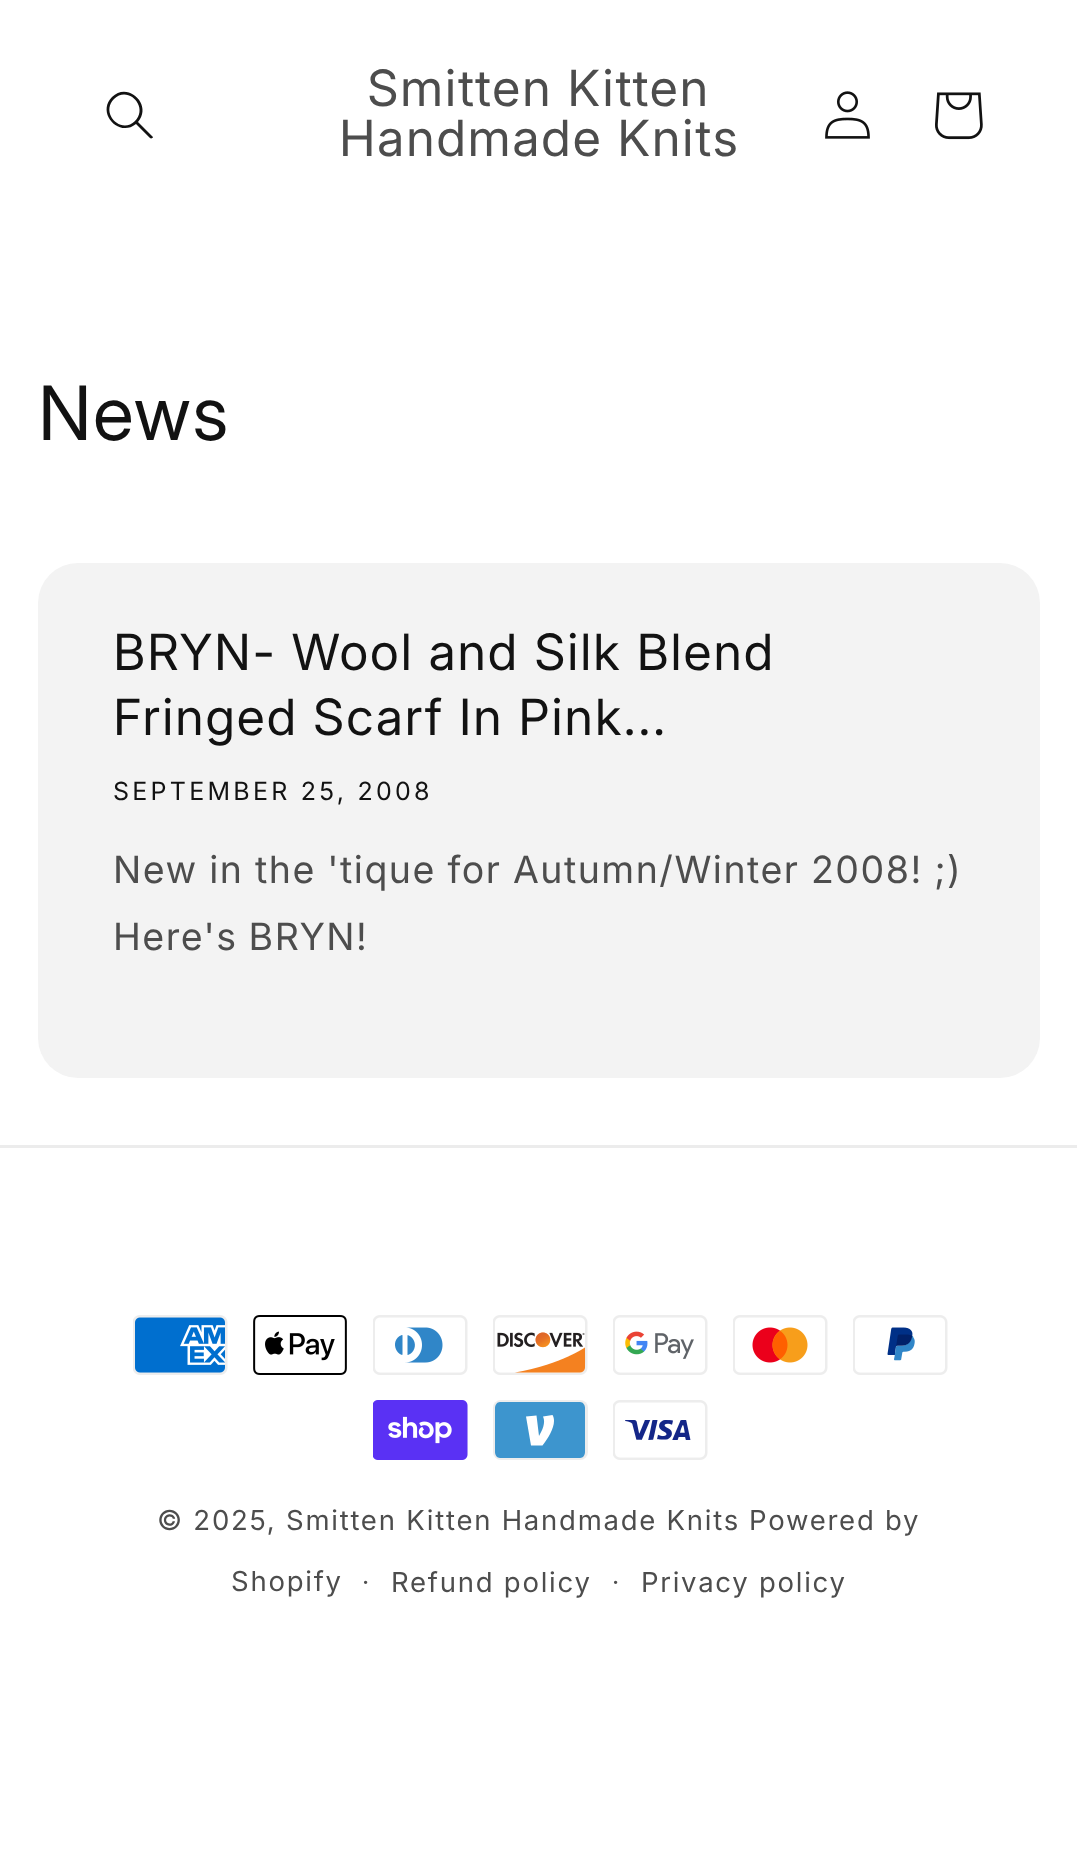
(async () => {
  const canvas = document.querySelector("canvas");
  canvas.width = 1077;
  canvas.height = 1849;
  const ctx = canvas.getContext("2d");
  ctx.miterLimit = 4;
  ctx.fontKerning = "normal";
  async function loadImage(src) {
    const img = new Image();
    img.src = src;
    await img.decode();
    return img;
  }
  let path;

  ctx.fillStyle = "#ffffff";
  ctx.fillRect(0, 0, 1077, 1849);
  ctx.fillStyle = "#121212";
  path = new Path2D("M135 121C121 135 100 113 114 99C128 85 149 107 135 121M136 124C119 138 96 113 112 97C128 81 153 105 138 122L153 137C153 138 151 139 150 138Z");
  ctx.fill(path, "evenodd");
  ctx.drawImage(await loadImage("img/1.png"), 825, 91, 45, 48);
  ctx.drawImage(await loadImage("img/2.png"), 935, 92, 48, 48);
  ctx.fillStyle = "#f3f3f3";
  ctx.beginPath();
  ctx.roundRect(38, 563, 1002, 515, 40);
  ctx.fill();
  ctx.fillStyle = "#ececec";
  ctx.fillRect(0, 1145, 1077, 3);
  ctx.drawImage(await loadImage("img/3.png"), 133, 1315, 95, 60);
  ctx.drawImage(await loadImage("img/4.png"), 253, 1315, 94, 60);
  ctx.drawImage(await loadImage("img/5.png"), 373, 1315, 95, 60);
  ctx.drawImage(await loadImage("img/6.png"), 493, 1315, 95, 60);
  ctx.drawImage(await loadImage("img/7.png"), 613, 1315, 95, 60);
  ctx.drawImage(await loadImage("img/8.png"), 733, 1315, 95, 60);
  ctx.drawImage(await loadImage("img/9.png"), 853, 1315, 95, 60);
  ctx.drawImage(await loadImage("img/10.png"), 373, 1400, 95, 60);
  ctx.fillStyle = "#ededed";
  ctx.beginPath();
  ctx.roundRect(493, 1400, 95, 60, 8);
  ctx.fill();
  ctx.fillStyle = "#3d95ce";
  path = new Path2D("M580 1402C583 1402 585 1405 585 1408V1452C585 1455 583 1458 580 1458H500C497 1458 495 1455 495 1452V1408C495 1405 497 1402 500 1402H580");
  ctx.fill(path, "evenodd");
  ctx.fillStyle = "#ffffff";
  path = new Path2D("M554 1421C554 1428.5 548 1438.5 542.5 1445.5H531L526 1416.5L536.5 1415.5L539 1436C542 1430.5 546 1423 543 1416.5L552.5 1415C553.5 1416.5 554 1418.5 554 1421Z");
  ctx.fill(path);
  ctx.drawImage(await loadImage("img/11.png"), 613, 1400, 95, 60);
  ctx.letterSpacing = "1.5px";
  ctx.font = "50px 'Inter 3'";
  ctx.fillStyle = "#4d4d4d";
  ctx.fillText("Smitten Kitten", 367, 106);
  ctx.fillText("Handmade Knits", 339, 156);
  ctx.font = "75px Inter";
  ctx.fillStyle = "#121212";
  ctx.fillText("News", 38, 440);
  ctx.font = "50px 'Inter 3'";
  ctx.fillText("BRYN- Wool and Silk Blend", 113, 670);
  ctx.fillText("Fringed Scarf In Pink...", 113, 735);
  ctx.letterSpacing = "3.25px";
  ctx.font = "25px 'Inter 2'";
  ctx.fillText("SEPTEMBER 25, 2008", 113, 800);
  ctx.letterSpacing = "1.5px";
  ctx.wordSpacing = "-0.5px";
  ctx.font = "37.5px 'Inter 2'";
  ctx.fillStyle = "#4d4d4d";
  ctx.fillText("New in the 'tique for Autumn/Winter 2008! ;)", 113, 883);
  ctx.wordSpacing = "-1px";
  ctx.fillText("Here's BRYN!", 113, 950);
  ctx.letterSpacing = "1.75px";
  ctx.wordSpacing = "0px";
  ctx.font = "27.5px 'Inter 2'";
  for (const [text, x, y] of [
    ["© 2025, Smitten Kitten Handmade Knits", 157, 1530],
    ["Powered by", 749, 1530],
    ["Shopify", 231, 1591],
  ]) {
    ctx.fillText(text, x, y);
  }
  ctx.font = "25px 'Inter 2'";
  ctx.fillText("·", 362, 1591);
  ctx.font = "27.5px 'Inter 2'";
  ctx.fillText("Refund policy", 391, 1592);
  ctx.font = "25px 'Inter 2'";
  ctx.fillText("·", 612, 1591);
  ctx.font = "27.5px 'Inter 2'";
  ctx.fillText("Privacy policy", 641, 1592);
})();
